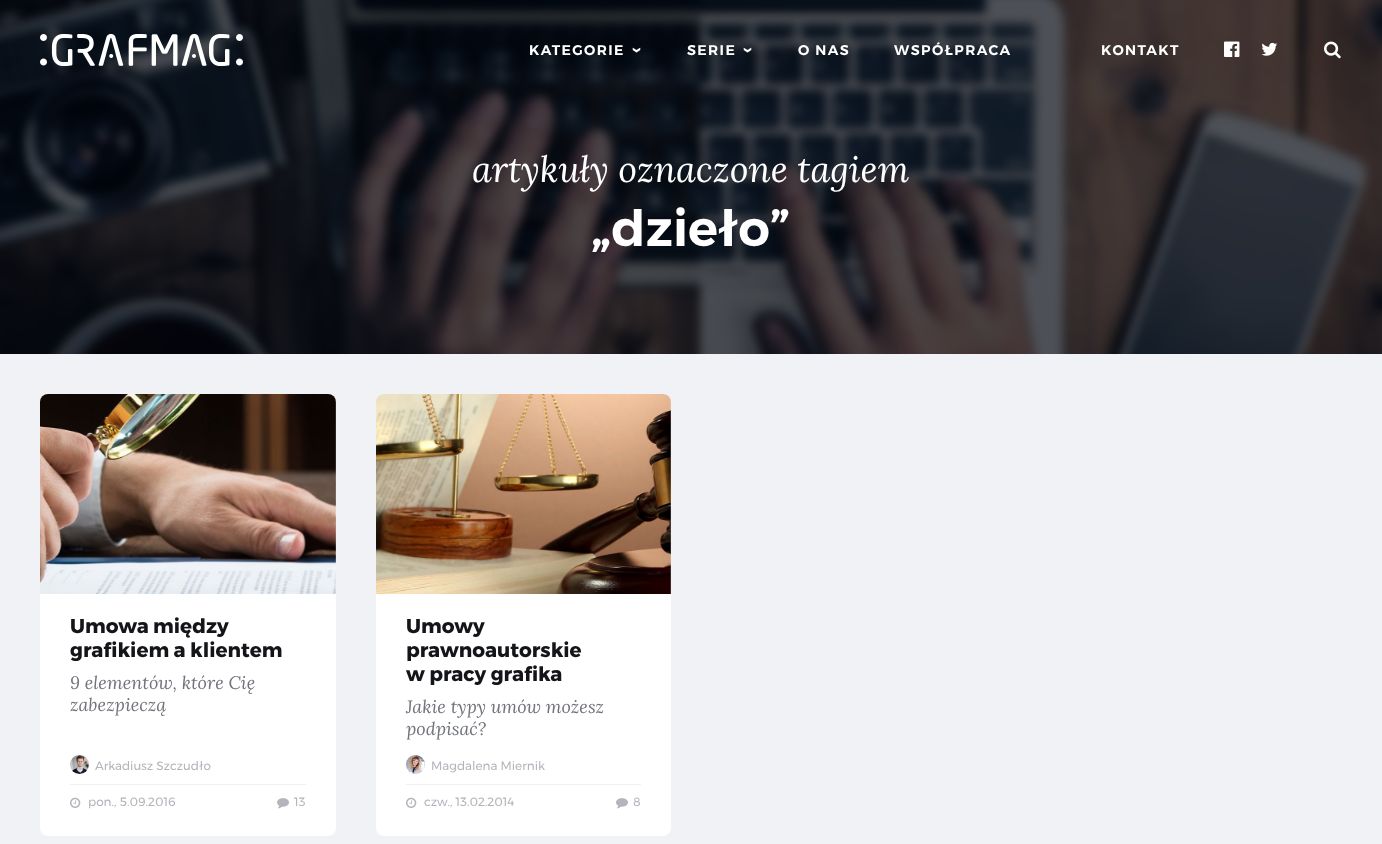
(async () => {
  const canvas = document.querySelector("canvas");
  canvas.width = 1382;
  canvas.height = 844;
  const ctx = canvas.getContext("2d");
  ctx.miterLimit = 4;
  ctx.fontKerning = "normal";
  async function loadImage(src) {
    const img = new Image();
    img.src = src;
    await img.decode();
    return img;
  }

  ctx.fillStyle = "#01050d";
  ctx.fillRect(0, 0, 1382, 844);
  ctx.drawImage(await loadImage("img/5.png"), 0, 0, 1382, 354);
  ctx.drawImage(await loadImage("img/1.png"), 40, 34, 203, 32);
  ctx.drawImage(await loadImage("img/2.png"), 1224, 41, 16, 16);
  ctx.drawImage(await loadImage("img/3.png"), 1261, 42, 17, 14);
  ctx.drawImage(await loadImage("img/4.png"), 1324, 41, 17, 18);
  ctx.fillStyle = "#f0f2f5";
  ctx.fillRect(0, 354, 1382, 490);
  ctx.fillStyle = "#ffffff";
  ctx.beginPath();
  ctx.roundRect(40, 394, 296, 442, 8);
  ctx.fill();
  ctx.drawImage(await loadImage("img/6.png"), 40, 394, 296, 200);
  ctx.drawImage(await loadImage("img/7.png"), 70, 755, 19, 19);
  ctx.fillStyle = "#f0f1f2";
  ctx.fillRect(70, 784, 236, 1);
  ctx.drawImage(await loadImage("img/8.png"), 70, 797, 11, 11);
  ctx.drawImage(await loadImage("img/9.png"), 277, 798, 12, 11);
  ctx.fillStyle = "#ffffff";
  ctx.beginPath();
  ctx.roundRect(376, 394, 295, 442, 8);
  ctx.fill();
  ctx.drawImage(await loadImage("img/10.png"), 376, 394, 295, 200);
  ctx.drawImage(await loadImage("img/11.png"), 406, 755, 19, 19);
  ctx.fillStyle = "#f0f1f2";
  ctx.fillRect(406, 784, 235, 1);
  ctx.drawImage(await loadImage("img/8.png"), 406, 797, 11, 11);
  ctx.drawImage(await loadImage("img/9.png"), 616, 798, 12, 11);
  ctx.letterSpacing = "1.4px";
  ctx.font = "600 14px Montserrat";
  ctx.fillStyle = "#ffffff";
  ctx.fillText("KATEGORIE", 529, 55);
  ctx.font = "500 21px Montserrat";
  ctx.save();
  ctx.translate(631, 47);
  ctx.rotate(90 * Math.PI / 180);
  ctx.fillText("›", 0, 0);
  ctx.restore();
  ctx.font = "600 14px Montserrat";
  ctx.fillText("SERIE", 687, 55);
  ctx.font = "500 21px Montserrat";
  ctx.save();
  ctx.translate(742, 47);
  ctx.rotate(90 * Math.PI / 180);
  ctx.fillText("›", 0, 0);
  ctx.restore();
  ctx.font = "600 14px Montserrat";
  for (const [text, x, y] of [
    ["O NAS", 798, 55],
    ["WSPÓŁPRACA", 894, 55],
    ["KONTAKT", 1101, 55],
  ]) {
    ctx.fillText(text, x, y);
  }
  ctx.letterSpacing = "0px";
  ctx.font = "italic 36px Lora";
  ctx.fillText("artykuły oznaczone tagiem", 472, 182);
  ctx.font = "600 50px Montserrat";
  ctx.fillText("„dzieło”", 591, 246);
  ctx.font = "bold 20px Montserrat";
  ctx.fillStyle = "#141518";
  ctx.fillText("Umowa między", 70, 633);
  ctx.fillText("grafikiem a klientem", 70, 657);
  ctx.font = "italic 18px Lora";
  ctx.fillStyle = "#70737a";
  ctx.fillText("9 elementów, które Cię", 70, 689);
  ctx.fillText("zabezpieczą", 70, 711);
  ctx.font = "12px Montserrat";
  ctx.fillStyle = "#b3b5bb";
  for (const [text, x, y] of [
    ["Arkadiusz Szczudło", 95, 770],
    ["pon., 5.09.2016", 88, 806],
    ["13", 294, 806],
  ]) {
    ctx.fillText(text, x, y);
  }
  ctx.font = "bold 20px Montserrat";
  ctx.fillStyle = "#141518";
  for (const [text, x, y] of [
    ["Umowy", 406, 633],
    ["prawnoautorskie", 406, 657],
    ["w pracy grafika", 406, 681],
  ]) {
    ctx.fillText(text, x, y);
  }
  ctx.font = "italic 18px Lora";
  ctx.fillStyle = "#70737a";
  ctx.fillText("Jakie typy umów możesz", 406, 713);
  ctx.fillText("podpisać?", 406, 735);
  ctx.font = "12px Montserrat";
  ctx.fillStyle = "#b3b5bb";
  for (const [text, x, y] of [
    ["Magdalena Miernik", 431, 770],
    ["czw., 13.02.2014", 424, 806],
    ["8", 633, 806],
  ]) {
    ctx.fillText(text, x, y);
  }
})();
